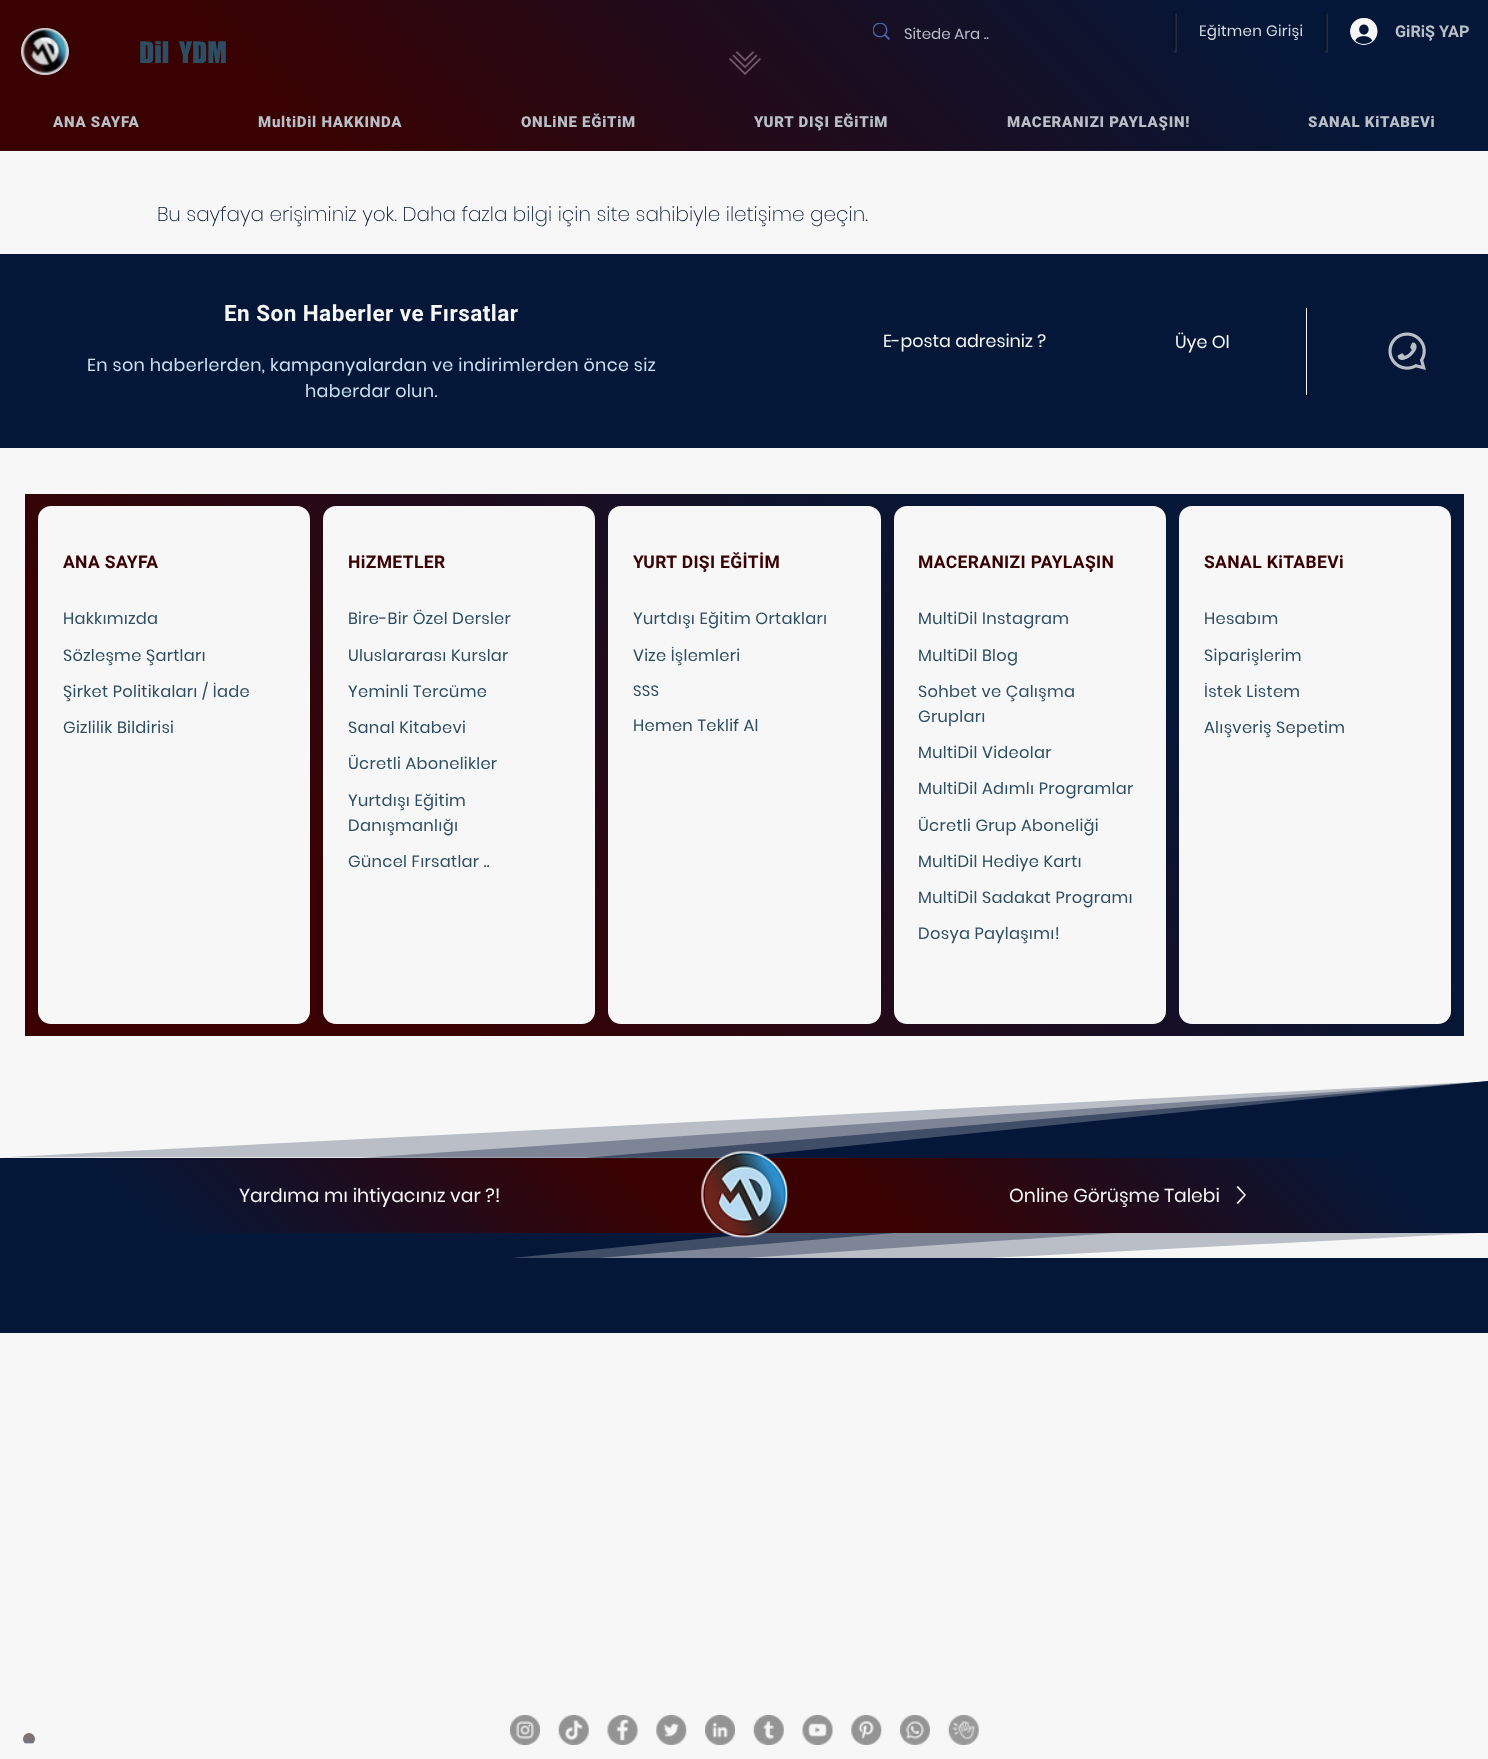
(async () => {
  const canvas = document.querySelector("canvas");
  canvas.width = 1488;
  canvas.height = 1759;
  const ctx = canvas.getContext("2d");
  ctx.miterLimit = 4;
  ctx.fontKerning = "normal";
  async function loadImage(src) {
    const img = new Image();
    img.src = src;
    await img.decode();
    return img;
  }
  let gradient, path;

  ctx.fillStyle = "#f7f7f7";
  ctx.fillRect(0, 0, 1488, 1759);
  gradient = ctx.createLinearGradient(1154, -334, 334, 486);
  gradient.addColorStop(0.15, "#041738");
  gradient.addColorStop(0.8, "#390101");
  ctx.fillStyle = gradient;
  ctx.fillRect(0, 0, 1488, 151);
  ctx.drawImage(await loadImage("img/1.png"), 873, 23, 17, 17);
  ctx.fillStyle = "#222c47";
  path = new Path2D("M1176 13H1175V50L1174 51C1174 52 1174 53 1176 53C1176 53 1177 52 1177 52V14Z");
  ctx.fill(path);
  ctx.fillStyle = "rgba(0, 0, 0, 0.25)";
  path = new Path2D("M1174 11L1173 12V50C1173 50 1174 51 1174 51C1175 51 1176 50 1176 50V12Z");
  ctx.fill(path);
  ctx.fillStyle = "#1d2e4c";
  path = new Path2D("M1326 13V50C1326 51 1326 51 1325 51C1325 52 1326 53 1327 53L1328 52V14Z");
  ctx.fill(path);
  ctx.fillStyle = "rgba(0, 0, 0, 0.25)";
  path = new Path2D("M1326 11L1324 12V50C1324 50 1325 51 1326 51C1326 51 1327 50 1327 50V12Z");
  ctx.fill(path);
  ctx.drawImage(await loadImage("img/2.png"), 1350, 18, 28, 27);
  ctx.fillStyle = "#d4d4d4";
  ctx.beginPath();
  ctx.roundRect(21.5, 28.5, 47, 46, 23);
  ctx.fill();
  ctx.strokeStyle = "#d4d4d4";
  ctx.stroke();
  ctx.drawImage(await loadImage("img/3.png"), 23, 29, 44, 44);
  ctx.drawImage(await loadImage("img/4.png"), 728, 50, 34, 26);
  ctx.fillStyle = "#041738";
  ctx.fillRect(0, 254, 1488, 194);
  ctx.fillStyle = "#f7f7f7";
  ctx.fillRect(1306, 308, 1, 87);
  ctx.drawImage(await loadImage("img/5.png"), 1388, 332, 38, 38);
  gradient = ctx.createLinearGradient(1240, 270, 249, 1260);
  gradient.addColorStop(0.24, "#041738");
  gradient.addColorStop(0.78, "#390101");
  ctx.fillStyle = gradient;
  ctx.fillRect(25, 494, 1439, 542);
  ctx.fillStyle = "#f7f7f7";
  ctx.beginPath();
  ctx.roundRect(38, 506, 272, 518, 13);
  ctx.fill();
  ctx.beginPath();
  ctx.roundRect(323, 506, 272, 518, 13);
  ctx.fill();
  ctx.beginPath();
  ctx.roundRect(608, 506, 273, 518, 13);
  ctx.fill();
  ctx.beginPath();
  ctx.roundRect(894, 506, 272, 518, 13);
  ctx.fill();
  ctx.beginPath();
  ctx.roundRect(1179, 506, 272, 518, 13);
  ctx.fill();
  ctx.drawImage(await loadImage("img/7.png"), 4, 1081, 1484, 77);
  ctx.drawImage(await loadImage("img/8.png"), 361, 1081, 1127, 77);
  ctx.drawImage(await loadImage("img/9.png"), 585, 1081, 903, 77);
  ctx.drawImage(await loadImage("img/10.png"), 513, 1233, 964, 25);
  ctx.drawImage(await loadImage("img/11.png"), 513, 1233, 601, 25);
  ctx.drawImage(await loadImage("img/12.png"), 513, 1233, 381, 25);
  ctx.fillStyle = "#041738";
  path = new Path2D("M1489 1159L0 1310V1159Z");
  ctx.fill(path);
  path = new Path2D("M0 1232L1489 1081V1232Z");
  ctx.fill(path);
  gradient = ctx.createLinearGradient(568, 993, 164, 1397);
  gradient.addColorStop(0.15, "#390101");
  gradient.addColorStop(0.8, "#041738");
  ctx.fillStyle = gradient;
  ctx.fillRect(0, 1158, 733, 75);
  gradient = ctx.createLinearGradient(1325, 993, 922, 1397);
  gradient.addColorStop(0.15, "#041738");
  gradient.addColorStop(0.8, "#390101");
  ctx.fillStyle = gradient;
  ctx.fillRect(759, 1158, 729, 75);
  ctx.drawImage(await loadImage("img/6.png"), 701, 1151, 87, 87);
  ctx.fillStyle = "#f7f7f7";
  path = new Path2D("M1246 1195L1238 1204L1236.5 1203L1244 1195L1236.5 1187L1238 1186Z");
  ctx.fill(path, "evenodd");
  ctx.fillStyle = "#041738";
  ctx.fillRect(0, 1258, 1488, 75);
  gradient = ctx.createLinearGradient(29, 1733, 29, 1745);
  gradient.addColorStop(0, "#85726f");
  gradient.addColorStop(1, "#6e7680");
  ctx.fillStyle = gradient;
  ctx.beginPath();
  ctx.arc(29, 1739, 6, 0, Math.PI * 2);
  ctx.fill();
  ctx.drawImage(await loadImage("img/13.png"), 24, 1743, 9, 2);
  ctx.drawImage(await loadImage("img/14.png"), 510, 1715, 30, 30);
  ctx.drawImage(await loadImage("img/15.png"), 558, 1715, 31, 30);
  ctx.drawImage(await loadImage("img/16.png"), 607, 1715, 31, 30);
  ctx.drawImage(await loadImage("img/17.png"), 656, 1715, 31, 30);
  ctx.drawImage(await loadImage("img/18.png"), 705, 1715, 30, 30);
  ctx.drawImage(await loadImage("img/19.png"), 753, 1715, 31, 30);
  ctx.drawImage(await loadImage("img/20.png"), 802, 1715, 31, 30);
  ctx.drawImage(await loadImage("img/21.png"), 851, 1715, 31, 30);
  ctx.drawImage(await loadImage("img/22.png"), 900, 1715, 30, 30);
  ctx.drawImage(await loadImage("img/23.png"), 948, 1715, 31, 30);
  ctx.font = "15px Poppins";
  ctx.fillStyle = "#babfc7";
  ctx.fillText("Sitede Ara ..", 904, 39);
  ctx.letterSpacing = "0.25px";
  ctx.fillStyle = "#d7dae0";
  ctx.fillText("Eğitmen Girişi", 1199, 36);
  ctx.letterSpacing = "0px";
  ctx.font = "bold 16.25px Roboto";
  ctx.fillStyle = "#babfc7";
  ctx.fillText("GiRiŞ YAP", 1395, 37);
  ctx.font = "27.5px 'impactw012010'";
  ctx.fillStyle = "#2c4d62";
  ctx.fillText("Dil  YDM", 139, 63);
  ctx.letterSpacing = "0.75px";
  ctx.font = "900 15px Roboto";
  ctx.fillStyle = "#babfc7";
  for (const [text, x, y] of [
    ["ANA SAYFA", 53, 127],
    ["MultiDil HAKKINDA", 258, 127],
    ["ONLiNE EĞiTiM", 521, 127],
    ["YURT DIŞI EĞiTiM", 754, 127],
    ["MACERANIZI PAYLAŞIN!", 1007, 127],
    ["SANAL KiTABEVi", 1308, 127],
  ]) {
    ctx.fillText(text, x, y);
  }
  ctx.letterSpacing = "0px";
  ctx.font = "200 20px Poppins";
  ctx.fillStyle = "#041738";
  ctx.fillText("Bu sayfaya erişiminiz yok. Daha fazla bilgi için site sahibiyle iletişime geçin.", 157, 221);
  ctx.letterSpacing = "0.45px";
  ctx.font = "bold 22.5px Roboto";
  ctx.fillStyle = "#f7f7f7";
  ctx.fillText("En Son Haberler ve Fırsatlar", 224, 321);
  ctx.letterSpacing = "0.35px";
  ctx.font = "17.5px Poppins";
  ctx.fillStyle = "#c7e2f3";
  ctx.fillText("En son haberlerden, kampanyalardan ve indirimlerden önce siz", 87, 371);
  ctx.fillText("haberdar olun.", 305, 397);
  ctx.letterSpacing = "0px";
  ctx.fillStyle = "#f7f7f7";
  ctx.fillText("E-posta adresiniz ?", 883, 347);
  ctx.fillText("Üye Ol", 1175, 348);
  ctx.letterSpacing = "0.35px";
  ctx.font = "bold 17.5px Roboto";
  ctx.fillStyle = "#390101";
  ctx.fillText("ANA SAYFA", 63, 568);
  ctx.letterSpacing = "0.3px";
  ctx.font = "16.25px Poppins";
  ctx.fillStyle = "#2c4d62";
  for (const [text, x, y] of [
    ["Hakkımızda", 63, 624],
    ["Sözleşme Şartları", 63, 661],
    ["Şirket Politikaları / İade", 63, 697],
    ["Gizlilik Bildirisi", 63, 733],
  ]) {
    ctx.fillText(text, x, y);
  }
  ctx.letterSpacing = "0.35px";
  ctx.font = "bold 17.5px Roboto";
  ctx.fillStyle = "#390101";
  ctx.fillText("HiZMETLER", 348, 568);
  ctx.letterSpacing = "0.3px";
  ctx.font = "16.25px Poppins";
  ctx.fillStyle = "#2c4d62";
  for (const [text, x, y] of [
    ["Bire-Bir Özel Dersler", 348, 624],
    ["Uluslararası Kurslar", 348, 661],
    ["Yeminli Tercüme", 348, 697],
    ["Sanal Kitabevi", 348, 733],
    ["Ücretli Abonelikler", 348, 769],
    ["Yurtdışı Eğitim", 348, 806],
    ["Danışmanlığı", 348, 831],
    ["Güncel Fırsatlar ..", 348, 867],
  ]) {
    ctx.fillText(text, x, y);
  }
  ctx.letterSpacing = "0.35px";
  ctx.font = "bold 17.5px Roboto";
  ctx.fillStyle = "#390101";
  ctx.fillText("YURT DIŞI EĞİTİM", 633, 568);
  ctx.letterSpacing = "0.3px";
  ctx.font = "16.25px Poppins";
  ctx.fillStyle = "#2c4d62";
  ctx.fillText("Yurtdışı Eğitim Ortakları", 633, 624);
  ctx.fillText("Vize İşlemleri", 633, 661);
  ctx.letterSpacing = "0.25px";
  ctx.font = "15px Poppins";
  ctx.fillText("SSS", 633, 696);
  ctx.letterSpacing = "0.3px";
  ctx.font = "16.25px Poppins";
  ctx.fillText("Hemen Teklif Al", 633, 731);
  ctx.letterSpacing = "0.35px";
  ctx.font = "bold 17.5px Roboto";
  ctx.fillStyle = "#390101";
  ctx.fillText("MACERANIZI PAYLAŞIN", 918, 568);
  ctx.letterSpacing = "0.3px";
  ctx.font = "16.25px Poppins";
  ctx.fillStyle = "#2c4d62";
  for (const [text, x, y] of [
    ["MultiDil Instagram", 918, 624],
    ["MultiDil Blog", 918, 661],
    ["Sohbet ve Çalışma", 918, 697],
    ["Grupları", 918, 722],
    ["MultiDil Videolar", 918, 758],
    ["MultiDil Adımlı Programlar", 918, 794],
    ["Ücretli Grup Aboneliği", 918, 831],
    ["MultiDil Hediye Kartı", 918, 867],
    ["MultiDil Sadakat Programı", 918, 903],
    ["Dosya Paylaşımı!", 918, 939],
  ]) {
    ctx.fillText(text, x, y);
  }
  ctx.letterSpacing = "0.35px";
  ctx.font = "bold 17.5px Roboto";
  ctx.fillStyle = "#390101";
  ctx.fillText("SANAL KiTABEVi", 1204, 568);
  ctx.letterSpacing = "0.3px";
  ctx.font = "16.25px Poppins";
  ctx.fillStyle = "#2c4d62";
  for (const [text, x, y] of [
    ["Hesabım", 1204, 624],
    ["Siparişlerim", 1204, 661],
    ["İstek Listem", 1204, 697],
    ["Alışveriş Sepetim", 1204, 733],
  ]) {
    ctx.fillText(text, x, y);
  }
  ctx.letterSpacing = "0px";
  ctx.font = "18.75px Poppins";
  ctx.fillStyle = "#f7f7f7";
  ctx.fillText("Yardıma mı ihtiyacınız var ?!", 239, 1202);
  ctx.fillText("Online Görüşme Talebi", 1009, 1202);
})();
